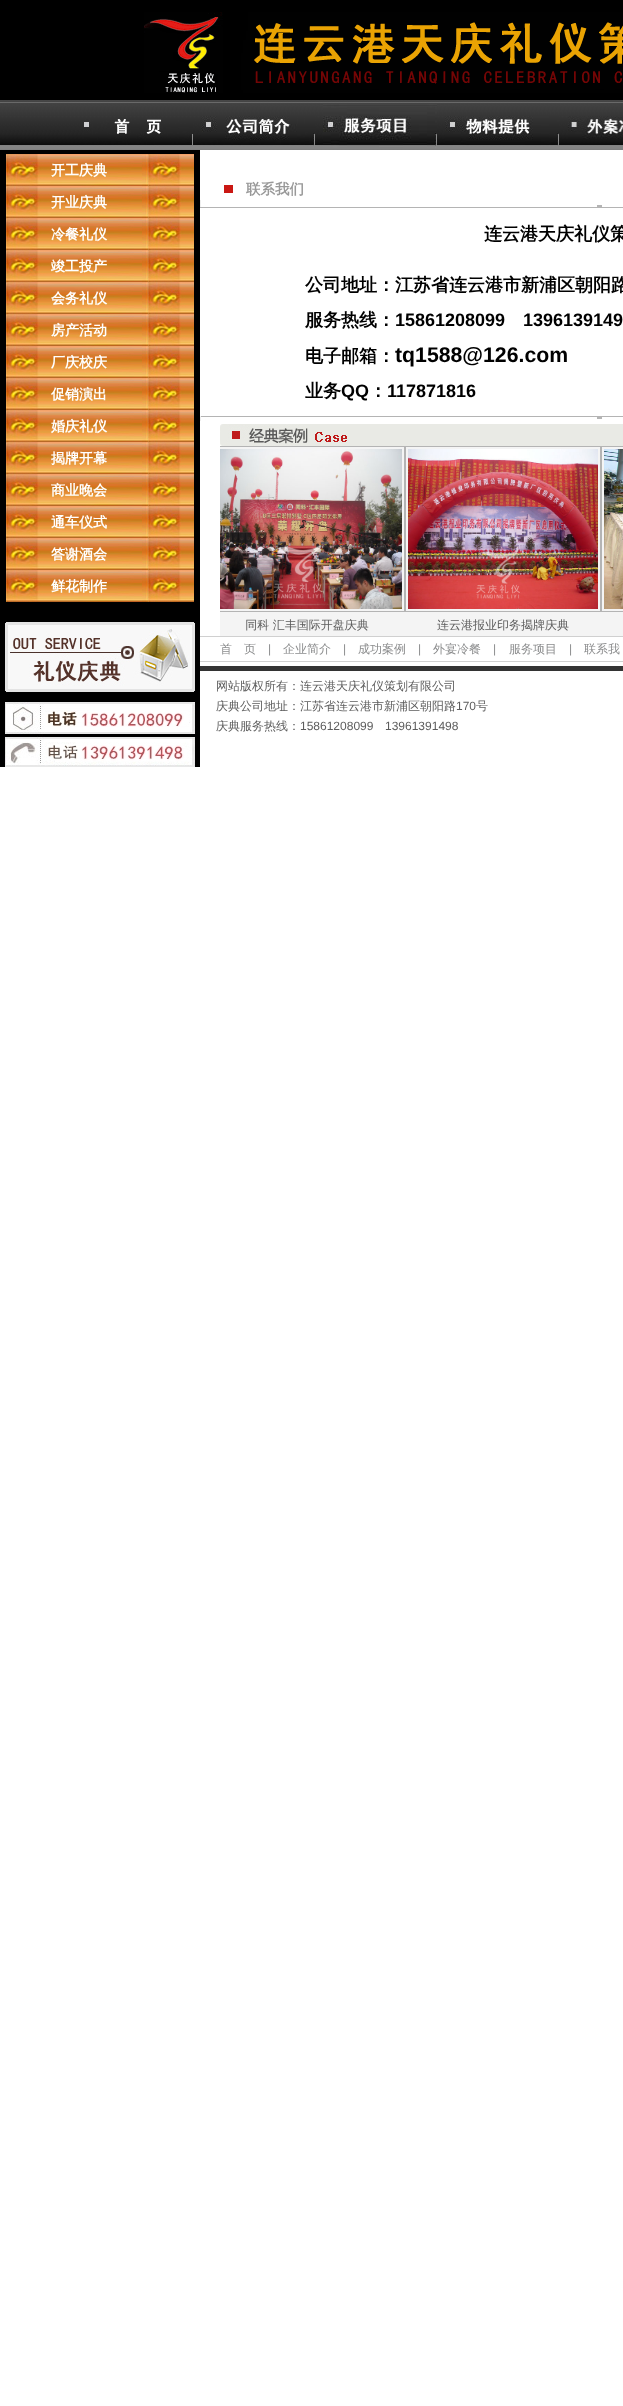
(async () => {
  const canvas = document.querySelector("canvas");
  canvas.width = 623;
  canvas.height = 2406;
  const ctx = canvas.getContext("2d");
  ctx.miterLimit = 4;
  ctx.fontKerning = "normal";
  async function loadImage(src) {
    const img = new Image();
    img.src = src;
    await img.decode();
    return img;
  }

  ctx.fillStyle = "#ffffff";
  ctx.fillRect(0, 0, 623, 2406);
  ctx.fillStyle = "#000000";
  ctx.fillRect(0, 0, 623, 100);
  ctx.drawImage(await loadImage("img/1.png"), 144, 12, 479, 81);
  ctx.drawImage(await loadImage("img/2.png"), 0, 100, 623, 50);
  ctx.drawImage(await loadImage("img/3.png"), 84, 119, 109, 26);
  ctx.drawImage(await loadImage("img/4.png"), 201, 116, 114, 30);
  ctx.drawImage(await loadImage("img/5.png"), 323, 104, 114, 44);
  ctx.drawImage(await loadImage("img/6.png"), 445, 116, 114, 30);
  ctx.drawImage(await loadImage("img/7.png"), 568, 116, 55, 23);
  ctx.fillRect(0, 150, 200, 617);
  ctx.drawImage(await loadImage("img/8.png"), 6, 154, 188, 32);
  ctx.drawImage(await loadImage("img/8.png"), 6, 186, 188, 32);
  ctx.drawImage(await loadImage("img/8.png"), 6, 218, 188, 32);
  ctx.drawImage(await loadImage("img/8.png"), 6, 250, 188, 32);
  ctx.drawImage(await loadImage("img/8.png"), 6, 282, 188, 32);
  ctx.drawImage(await loadImage("img/8.png"), 6, 314, 188, 32);
  ctx.drawImage(await loadImage("img/8.png"), 6, 346, 188, 32);
  ctx.drawImage(await loadImage("img/8.png"), 6, 378, 188, 32);
  ctx.drawImage(await loadImage("img/8.png"), 6, 410, 188, 32);
  ctx.drawImage(await loadImage("img/8.png"), 6, 442, 188, 32);
  ctx.drawImage(await loadImage("img/8.png"), 6, 474, 188, 32);
  ctx.drawImage(await loadImage("img/8.png"), 6, 506, 188, 32);
  ctx.drawImage(await loadImage("img/8.png"), 6, 538, 188, 32);
  ctx.drawImage(await loadImage("img/8.png"), 6, 570, 188, 32);
  ctx.drawImage(await loadImage("img/9.png"), 5, 622, 190, 70);
  ctx.drawImage(await loadImage("img/10.png"), 5, 702, 190, 65);
  ctx.fillStyle = "#ca1713";
  ctx.fillRect(224, 185, 9, 8);
  ctx.drawImage(await loadImage("img/11.png"), 200, 200, 423, 8);
  ctx.drawImage(await loadImage("img/12.png"), 200, 416, 423, 5);
  ctx.fillStyle = "#e9eae5";
  ctx.fillRect(347, 424, 276, 22);
  ctx.drawImage(await loadImage("img/13.png"), 220, 424, 127, 22);
  ctx.drawImage(await loadImage("img/14.png"), 220, 446, 403, 190);
  for (const [x, y, w, h, color] of [
    [200, 636, 423, 1, "#d0d0d0"],
    [200, 661, 423, 1, "#d0d0d0"],
    [200, 666, 423, 5, "#333333"],
  ]) {
    ctx.fillStyle = color;
    ctx.fillRect(x, y, w, h);
  }
  ctx.font = "bold 14px WenQuanYi Zen Hei";
  ctx.fillStyle = "#ffffff";
  for (const [text, x, y] of [
    ["开工庆典", 51, 175],
    ["开业庆典", 51, 207],
    ["冷餐礼仪", 51, 239],
    ["竣工投产", 51, 271],
    ["会务礼仪", 51, 303],
    ["房产活动", 51, 335],
    ["厂庆校庆", 51, 367],
    ["促销演出", 51, 399],
    ["婚庆礼仪", 51, 431],
    ["揭牌开幕", 51, 463],
    ["商业晚会", 51, 495],
    ["通车仪式", 51, 527],
    ["答谢酒会", 51, 559],
    ["鲜花制作", 51, 591],
  ]) {
    ctx.fillText(text, x, y);
  }
  ctx.font = "bold 14.5px WenQuanYi Zen Hei";
  ctx.fillStyle = "#999999";
  ctx.fillText("联系我们", 246, 194);
  ctx.font = "bold 18px WenQuanYi Zen Hei";
  ctx.fillStyle = "#000000";
  for (const [text, x, y] of [
    ["连云港天庆礼仪策", 484, 240],
    ["公司地址：江苏省连云港市新浦区朝阳路", 305, 291],
    ["服务热线：", 305, 326],
  ]) {
    ctx.fillText(text, x, y);
  }
  ctx.font = "bold 18px Liberation Sans";
  ctx.fillText("15861208099", 395, 326);
  ctx.fillText("1396139149", 523, 326);
  ctx.font = "bold 18px WenQuanYi Zen Hei";
  ctx.fillText("电子邮箱：", 305, 362);
  ctx.font = "bold 21.25px Liberation Sans";
  ctx.fillText("tq1588@126.com", 395, 362);
  ctx.font = "bold 18px WenQuanYi Zen Hei";
  ctx.fillText("业务", 305, 397);
  ctx.font = "bold 18px Liberation Sans";
  ctx.fillText("QQ", 341, 397);
  ctx.font = "bold 18px WenQuanYi Zen Hei";
  ctx.fillText("：", 369, 397);
  ctx.font = "bold 18px Liberation Sans";
  ctx.fillText("117871816", 387, 397);
  ctx.font = "500 12px WenQuanYi Zen Hei";
  ctx.fillStyle = "#8b8c8d";
  ctx.fillText("首　页", 220, 653);
  ctx.font = "12px Liberation Sans";
  ctx.fillText("|", 268, 653);
  ctx.font = "500 12px WenQuanYi Zen Hei";
  ctx.fillText("企业简介", 283, 653);
  ctx.font = "12px Liberation Sans";
  ctx.fillText("|", 343, 653);
  ctx.font = "500 12px WenQuanYi Zen Hei";
  ctx.fillText("成功案例", 358, 653);
  ctx.font = "12px Liberation Sans";
  ctx.fillText("|", 418, 653);
  ctx.font = "500 12px WenQuanYi Zen Hei";
  ctx.fillText("外宴冷餐", 433, 653);
  ctx.font = "12px Liberation Sans";
  ctx.fillText("|", 493, 653);
  ctx.font = "500 12px WenQuanYi Zen Hei";
  ctx.fillText("服务项目", 509, 653);
  ctx.font = "12px Liberation Sans";
  ctx.fillText("|", 569, 653);
  ctx.font = "500 12px WenQuanYi Zen Hei";
  ctx.fillText("联系我", 584, 653);
  ctx.fillStyle = "#5c5c5c";
  ctx.fillText("网站版权所有：连云港天庆礼仪策划有限公司", 216, 690);
  ctx.fillText("庆典公司地址：江苏省连云港市新浦区朝阳路", 216, 710);
  ctx.font = "12px Liberation Sans";
  ctx.fillText("170", 456, 710);
  ctx.font = "500 12px WenQuanYi Zen Hei";
  ctx.fillText("号", 476, 710);
  ctx.fillText("庆典服务热线：", 216, 730);
  ctx.font = "12px Liberation Sans";
  ctx.fillText("15861208099", 300, 730);
  ctx.fillText("13961391498", 385, 730);
})();
